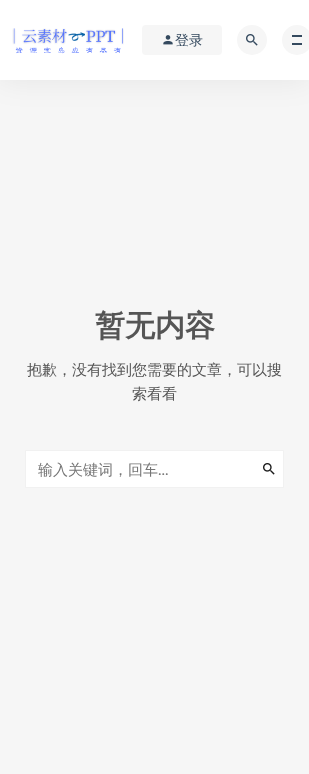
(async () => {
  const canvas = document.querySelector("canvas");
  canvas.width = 309;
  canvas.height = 774;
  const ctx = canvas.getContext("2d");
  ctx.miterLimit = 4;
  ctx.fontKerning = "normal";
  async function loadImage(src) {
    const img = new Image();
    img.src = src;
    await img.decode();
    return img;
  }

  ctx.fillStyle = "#f6f6f6";
  ctx.fillRect(0, 0, 309, 774);
  ctx.fillStyle = "rgba(0, 0, 0, 0.07)";
  ctx.filter = "blur(15px)";
  ctx.beginPath();
  ctx.rect(0, 0, 309, 80);
  ctx.fill();
  ctx.filter = "none";
  ctx.fillStyle = "#ffffff";
  ctx.fillRect(0, 0, 309, 80);
  ctx.drawImage(await loadImage("img/1.png"), 12, 28, 112, 26);
  ctx.fillStyle = "#f6f6f6";
  ctx.beginPath();
  ctx.roundRect(142, 25, 80, 30, 4);
  ctx.fill();
  ctx.drawImage(await loadImage("img/2.png"), 163, 35, 10, 10);
  ctx.beginPath();
  ctx.arc(252, 40, 15, 0, Math.PI * 2);
  ctx.fill();
  ctx.drawImage(await loadImage("img/3.png"), 246, 34, 12, 12);
  ctx.beginPath();
  ctx.arc(297, 40, 15, 0, Math.PI * 2);
  ctx.fill();
  ctx.fillStyle = "#34495e";
  ctx.fillRect(292, 35, 10, 2);
  ctx.fillRect(292, 43, 10, 2);
  ctx.fillStyle = "#ffffff";
  ctx.beginPath();
  ctx.rect(25.5, 450.5, 258, 37);
  ctx.fill();
  ctx.strokeStyle = "#f1f1f1";
  ctx.stroke();
  ctx.drawImage(await loadImage("img/4.png"), 263, 463, 12, 12);
  ctx.font = "500 14px WenQuanYi Zen Hei";
  ctx.fillStyle = "#34495e";
  ctx.fillText("登录", 175, 45);
  ctx.font = "bold 30px WenQuanYi Zen Hei";
  ctx.fillStyle = "#555555";
  ctx.fillText("暂无内容", 95, 336);
  ctx.font = "500 15px WenQuanYi Zen Hei";
  ctx.fillText("抱歉，没有找到您需要的文章，可以搜", 27, 375);
  ctx.fillText("索看看", 132, 399);
  ctx.fillStyle = "#757575";
  ctx.fillText("输入关键词，回车", 38, 475);
  ctx.font = "15px Lato";
  ctx.fillText("...", 158, 475);
})();
